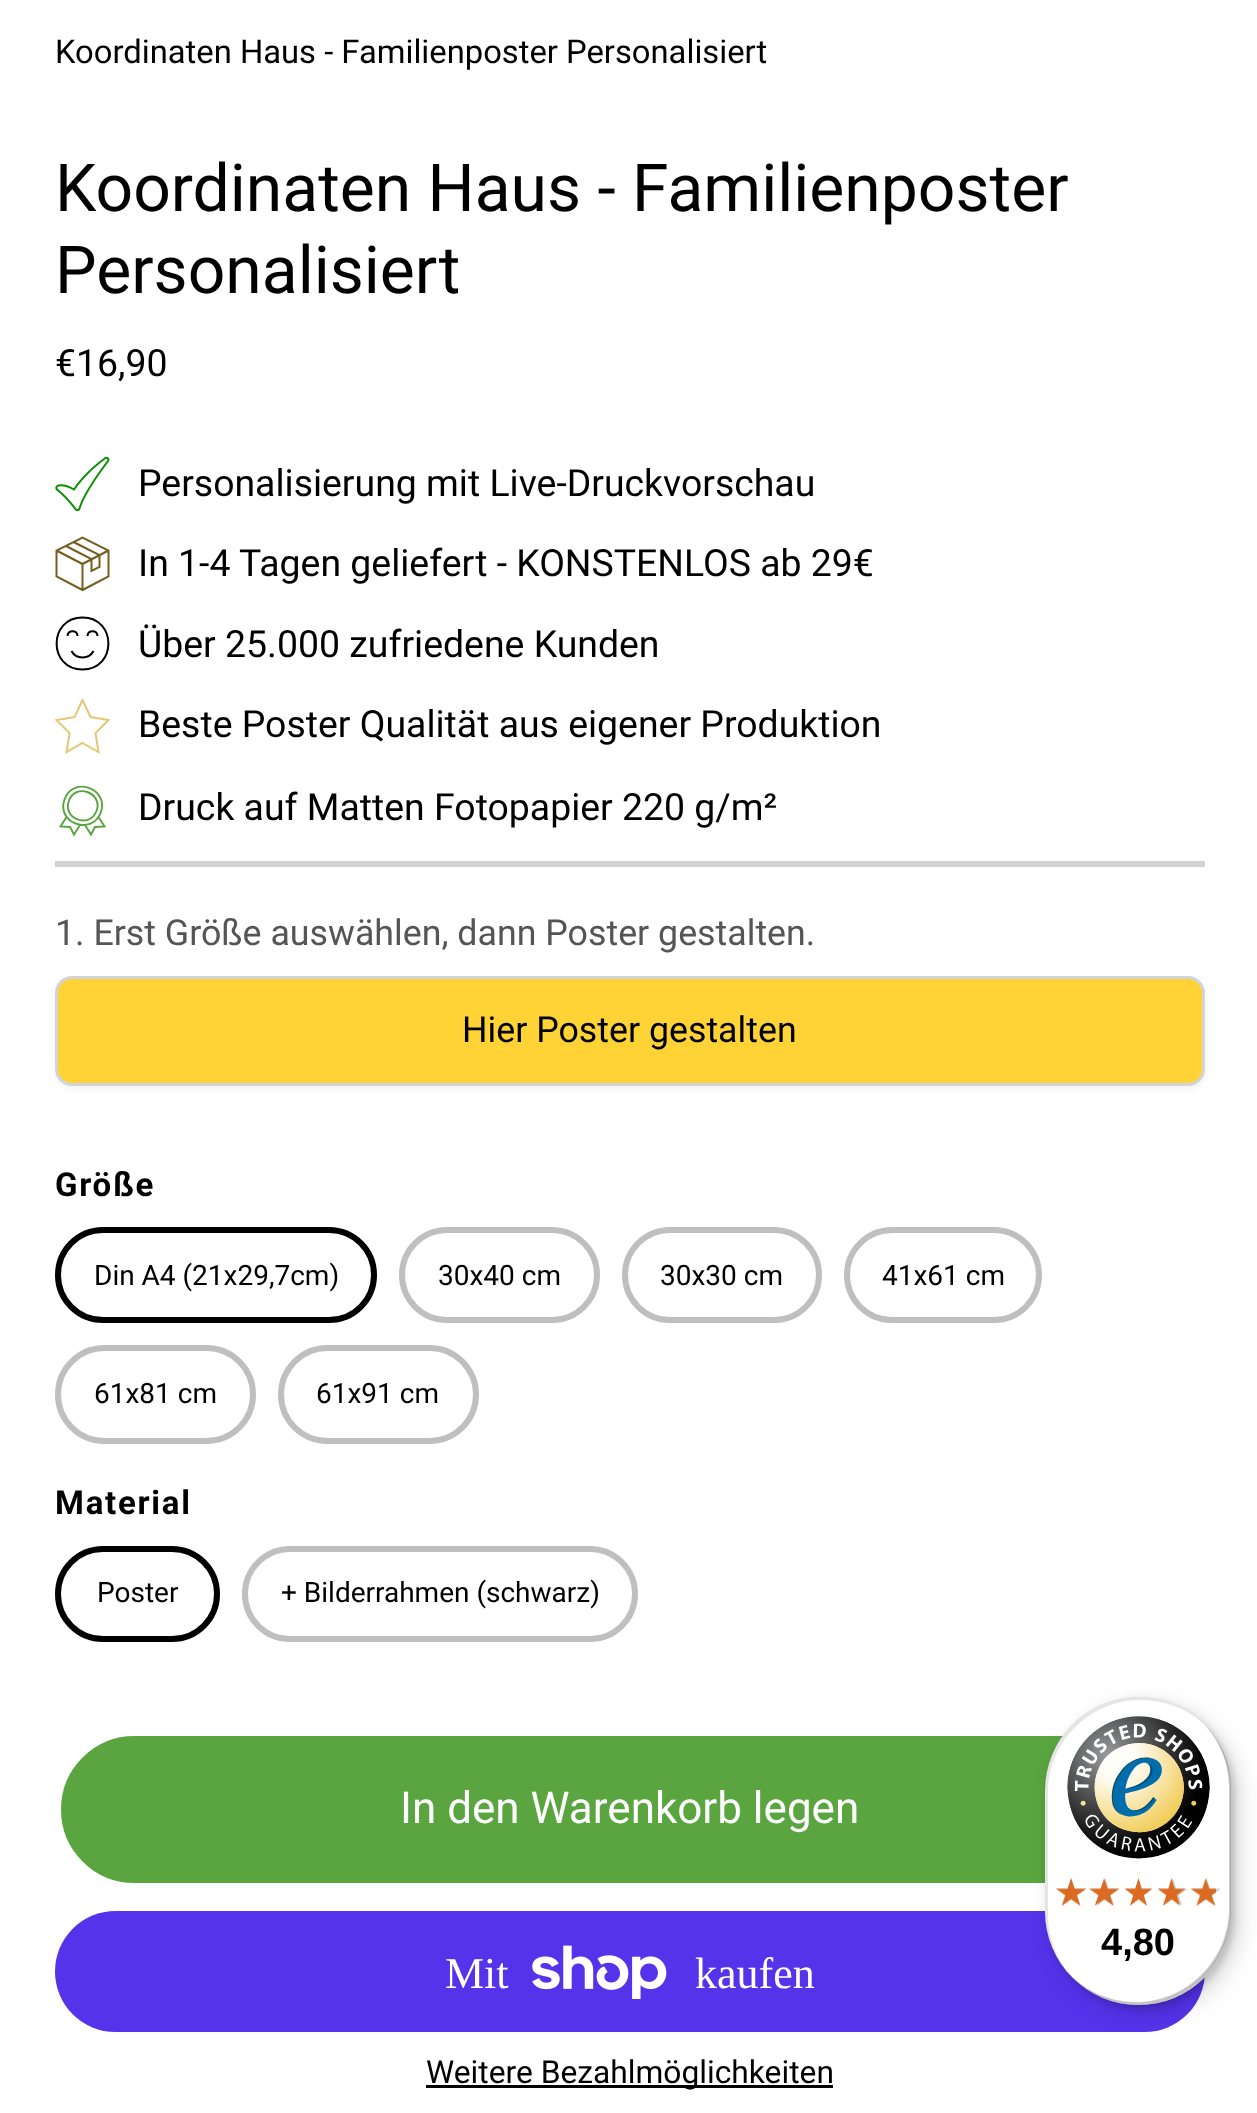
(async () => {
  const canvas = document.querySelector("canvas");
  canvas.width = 1257;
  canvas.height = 2113;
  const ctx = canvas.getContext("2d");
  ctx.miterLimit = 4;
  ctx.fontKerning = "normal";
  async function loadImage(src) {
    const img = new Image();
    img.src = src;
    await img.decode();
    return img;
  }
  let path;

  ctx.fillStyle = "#ffffff";
  ctx.fillRect(0, 0, 1257, 2113);
  path = new Path2D("M74 489.5C74 489.5 85 472.5 105.5 458C107.5 457 109.5 459.5 108 461C99 473 83.5 494.5 79.5 508.5C79 510.5 76.5 510.5 75.5 509C72 504.5 66.5 497 57.5 490C55.5 488.5 56 486 58.5 485.5C62 485 67 485.5 74 489.5Z");
  ctx.strokeStyle = "#0a8f00";
  ctx.lineWidth = 2;
  ctx.stroke(path);
  path = new Path2D("M108.5 550.5V576.5L82.5 590L56.5 576.5V550.5L82.5 537.5ZM56.5 550.5L82.5 564L108.5 550.5M82.5 564V590M73.5 542L99.5 555V567L91.5 571V559L66 546");
  ctx.strokeStyle = "#725e1f";
  ctx.stroke(path);
  path = new Path2D("M82.5 669.5C117 669.5 117 617.5 82.5 617.5C48 617.5 48 669.5 82.5 669.5ZM67.5 636C67.5 629.5 77.5 629.5 77.5 636M87.5 636C87.5 629.5 97.5 629.5 97.5 636M71.5 651C76 659.5 89 659.5 93.5 651");
  ctx.strokeStyle = "#000000";
  ctx.stroke(path);
  ctx.save();
  ctx.beginPath();
  ctx.rect(55, 699, 55, 55);
  ctx.clip();
  path = new Path2D("M82.5 743L98.5 752L95.5 733L108.5 720L90.5 717L82.5 700L74.5 717L56.5 720L69.5 733L66.5 752Z");
  ctx.strokeStyle = "#e6c777";
  ctx.stroke(path);
  ctx.restore();
  path = new Path2D("M101 812C109 788.5 72.5 775.5 64.5 799.5C56 823.5 92.5 836 101 812ZM96.5 811C103.5 793 75.5 782.5 69 800.5C62 819 89.5 829 96.5 811ZM98.5 817L104.5 826.5L95 827L91 834.5L85 825M66.5 817L60.5 826.5L70 827L74 834.5L80 825");
  ctx.strokeStyle = "#5aa540";
  ctx.lineWidth = 1.9;
  ctx.stroke(path);
  ctx.fillStyle = "#d3d3d3";
  ctx.fillRect(55, 861, 1150, 6);
  ctx.fillStyle = "rgba(0, 0, 0, 0.05)";
  ctx.filter = "blur(3px)";
  ctx.beginPath();
  ctx.roundRect(55, 979, 1150, 110, 17);
  ctx.fill();
  ctx.filter = "none";
  ctx.fillStyle = "#ffd336";
  ctx.beginPath();
  ctx.roundRect(56.5, 977.5, 1147, 107, 15.5);
  ctx.fill();
  ctx.strokeStyle = "#d1d5db";
  ctx.lineWidth = 3;
  ctx.stroke();
  ctx.beginPath();
  ctx.roundRect(58, 1230, 316, 90, 45);
  ctx.strokeStyle = "#000000";
  ctx.lineWidth = 6;
  ctx.stroke();
  ctx.beginPath();
  ctx.roundRect(402, 1230, 195, 90, 45);
  ctx.strokeStyle = "#bfbfbf";
  ctx.stroke();
  ctx.beginPath();
  ctx.roundRect(625, 1230, 194, 90, 45);
  ctx.stroke();
  ctx.beginPath();
  ctx.roundRect(847, 1230, 192, 90, 45);
  ctx.stroke();
  ctx.beginPath();
  ctx.roundRect(58, 1348, 195, 93, 46.5);
  ctx.stroke();
  ctx.beginPath();
  ctx.roundRect(281, 1348, 195, 93, 46.5);
  ctx.stroke();
  ctx.beginPath();
  ctx.roundRect(58, 1549, 159, 90, 45);
  ctx.strokeStyle = "#000000";
  ctx.stroke();
  ctx.beginPath();
  ctx.roundRect(245, 1549, 390, 90, 45);
  ctx.strokeStyle = "#bfbfbf";
  ctx.stroke();
  ctx.fillStyle = "#5aa540";
  ctx.beginPath();
  ctx.roundRect(58, 1733, 1144, 153, 76.5);
  ctx.fill();
  ctx.strokeStyle = "#ffffff";
  ctx.stroke();
  ctx.fillStyle = "#5433eb";
  ctx.beginPath();
  ctx.roundRect(55, 1911, 1150, 121, 60.5);
  ctx.fill();
  ctx.drawImage(await loadImage("img/1.png"), 532, 1945, 135, 54);
  ctx.fillStyle = "#000000";
  ctx.fillRect(426, 2085, 407, 3);
  ctx.fillStyle = "rgba(0, 0, 0, 0.15)";
  ctx.filter = "blur(11px)";
  ctx.beginPath();
  ctx.roundRect(1053, 1705, 187, 308, 93.5);
  ctx.fill();
  ctx.filter = "none";
  ctx.filter = "blur(3px)";
  ctx.beginPath();
  ctx.roundRect(1048, 1700, 187, 308, 93.5);
  ctx.fill();
  ctx.filter = "none";
  ctx.fillStyle = "#ffffff";
  ctx.beginPath();
  ctx.roundRect(1045, 1697, 187, 308, 93.5);
  ctx.fill();
  ctx.fillStyle = "rgba(0, 0, 0, 0.1)";
  path = new Path2D("M1141 1700C1165 1700 1187 1709 1203 1723C1187 1707 1164 1697 1138 1697C1087 1697 1045 1739 1045 1790V1912C1045 1939 1057 1963 1075 1980C1058 1963 1048 1940 1048 1914V1793C1048 1741 1090 1700 1141 1700Z");
  ctx.fill(path);
  ctx.fillStyle = "rgba(0, 0, 0, 0.2)";
  path = new Path2D("M1068 1973C1086 1993 1111 2005 1138 2005C1190 2005 1232 1963 1232 1912V1790C1232 1763 1220 1739 1202 1722C1219 1739 1229 1762 1229 1788V1908C1229 1960 1187 2002 1136 2002C1109 2002 1086 1991 1068 1973Z");
  ctx.fill(path);
  ctx.fillStyle = "rgba(50, 50, 50, 0.2)";
  path = new Path2D("M1070 1975C1087 1993 1111 2005 1138 2005C1190 2005 1232 1963 1232 1912V1790C1232 1763 1220 1739 1202 1722C1219 1739 1230 1763 1230 1789V1910C1230 1961 1188 2003 1137 2003C1111 2003 1087 1992 1070 1975Z");
  ctx.fill(path);
  ctx.fillStyle = "rgba(255, 255, 255, 0.3)";
  path = new Path2D("M1067 1971C1084 1992 1110 2005 1138 2005C1190 2005 1232 1963 1232 1912V1790C1232 1773 1227 1756 1219 1742C1227 1756 1231 1772 1231 1789V1910C1231 1962 1189 2003 1137 2003C1109 2003 1084 1991 1067 1971Z");
  ctx.fill(path);
  ctx.drawImage(await loadImage("img/2.png"), 1067, 1716, 143, 143);
  ctx.drawImage(await loadImage("img/3.png"), 1056, 1878, 30, 28);
  ctx.drawImage(await loadImage("img/4.png"), 1092, 1878, 27, 28);
  ctx.drawImage(await loadImage("img/4.png"), 1125, 1878, 27, 28);
  ctx.drawImage(await loadImage("img/5.png"), 1158, 1878, 30, 28);
  ctx.drawImage(await loadImage("img/6.png"), 1191, 1878, 30, 28);
  ctx.drawImage(await loadImage("img/7.png"), 1056, 1878, 30, 28);
  ctx.drawImage(await loadImage("img/8.png"), 1089, 1878, 30, 28);
  ctx.drawImage(await loadImage("img/9.png"), 1125, 1878, 27, 28);
  ctx.drawImage(await loadImage("img/10.png"), 1158, 1878, 27, 28);
  ctx.drawImage(await loadImage("img/11.png"), 1191, 1878, 25, 28);
  ctx.font = "32.75px Roboto";
  ctx.fillStyle = "#000000";
  ctx.fillText("Koordinaten Haus - Familienposter Personalisiert", 55, 63);
  ctx.font = "66px Roboto";
  ctx.fillText("Koordinaten Haus - Familienposter", 55, 211);
  ctx.fillText("Personalisiert", 55, 293);
  ctx.font = "37.4px Roboto";
  for (const [text, x, y] of [
    ["€16,90", 55, 376],
    ["Personalisierung mit Live-Druckvorschau", 138, 496],
    ["In 1-4 Tagen geliefert - KONSTENLOS ab 29€", 138, 576],
    ["Über 25.000 zufriedene Kunden", 138, 657],
    ["Beste Poster Qualität aus eigener Produktion", 138, 737],
    ["Druck auf Matten Fotopapier 220 g/m²", 138, 820],
  ]) {
    ctx.fillText(text, x, y);
  }
  ctx.font = "35.75px Roboto";
  ctx.fillStyle = "#555555";
  ctx.fillText("1. Erst Größe auswählen, dann Poster gestalten.", 55, 945);
  ctx.fillStyle = "#000000";
  ctx.fillText("Hier Poster gestalten", 462, 1042);
  ctx.letterSpacing = "1.75px";
  ctx.font = "bold 33px Roboto";
  ctx.fillText("Größe", 55, 1196);
  ctx.letterSpacing = "0px";
  ctx.font = "28px Roboto";
  for (const [text, x, y] of [
    ["Din A4 (21x29,7cm)", 94, 1285],
    ["30x40 cm", 438, 1285],
    ["30x30 cm", 660, 1285],
    ["41x61 cm", 882, 1285],
    ["61x81 cm", 94, 1403],
    ["61x91 cm", 316, 1403],
  ]) {
    ctx.fillText(text, x, y);
  }
  ctx.letterSpacing = "1.75px";
  ctx.font = "bold 33px Roboto";
  ctx.fillText("Material", 55, 1514);
  ctx.letterSpacing = "0px";
  ctx.font = "28px Roboto";
  ctx.fillText("Poster", 97, 1602);
  ctx.fillText("+ Bilderrahmen (schwarz)", 281, 1602);
  ctx.font = "44px Roboto";
  ctx.fillStyle = "#ffffff";
  ctx.fillText("In den Warenkorb legen", 400, 1823);
  ctx.font = "44px Liberation Serif";
  ctx.fillText("Mit", 445, 1988);
  ctx.fillText("kaufen", 695, 1988);
  ctx.font = "31.75px Roboto";
  ctx.fillStyle = "#000000";
  ctx.fillText("Weitere Bezahlmöglichkeiten", 426, 2083);
  ctx.font = "bold 38px Liberation Sans";
  ctx.fillText("4,80", 1101, 1955);
})();
